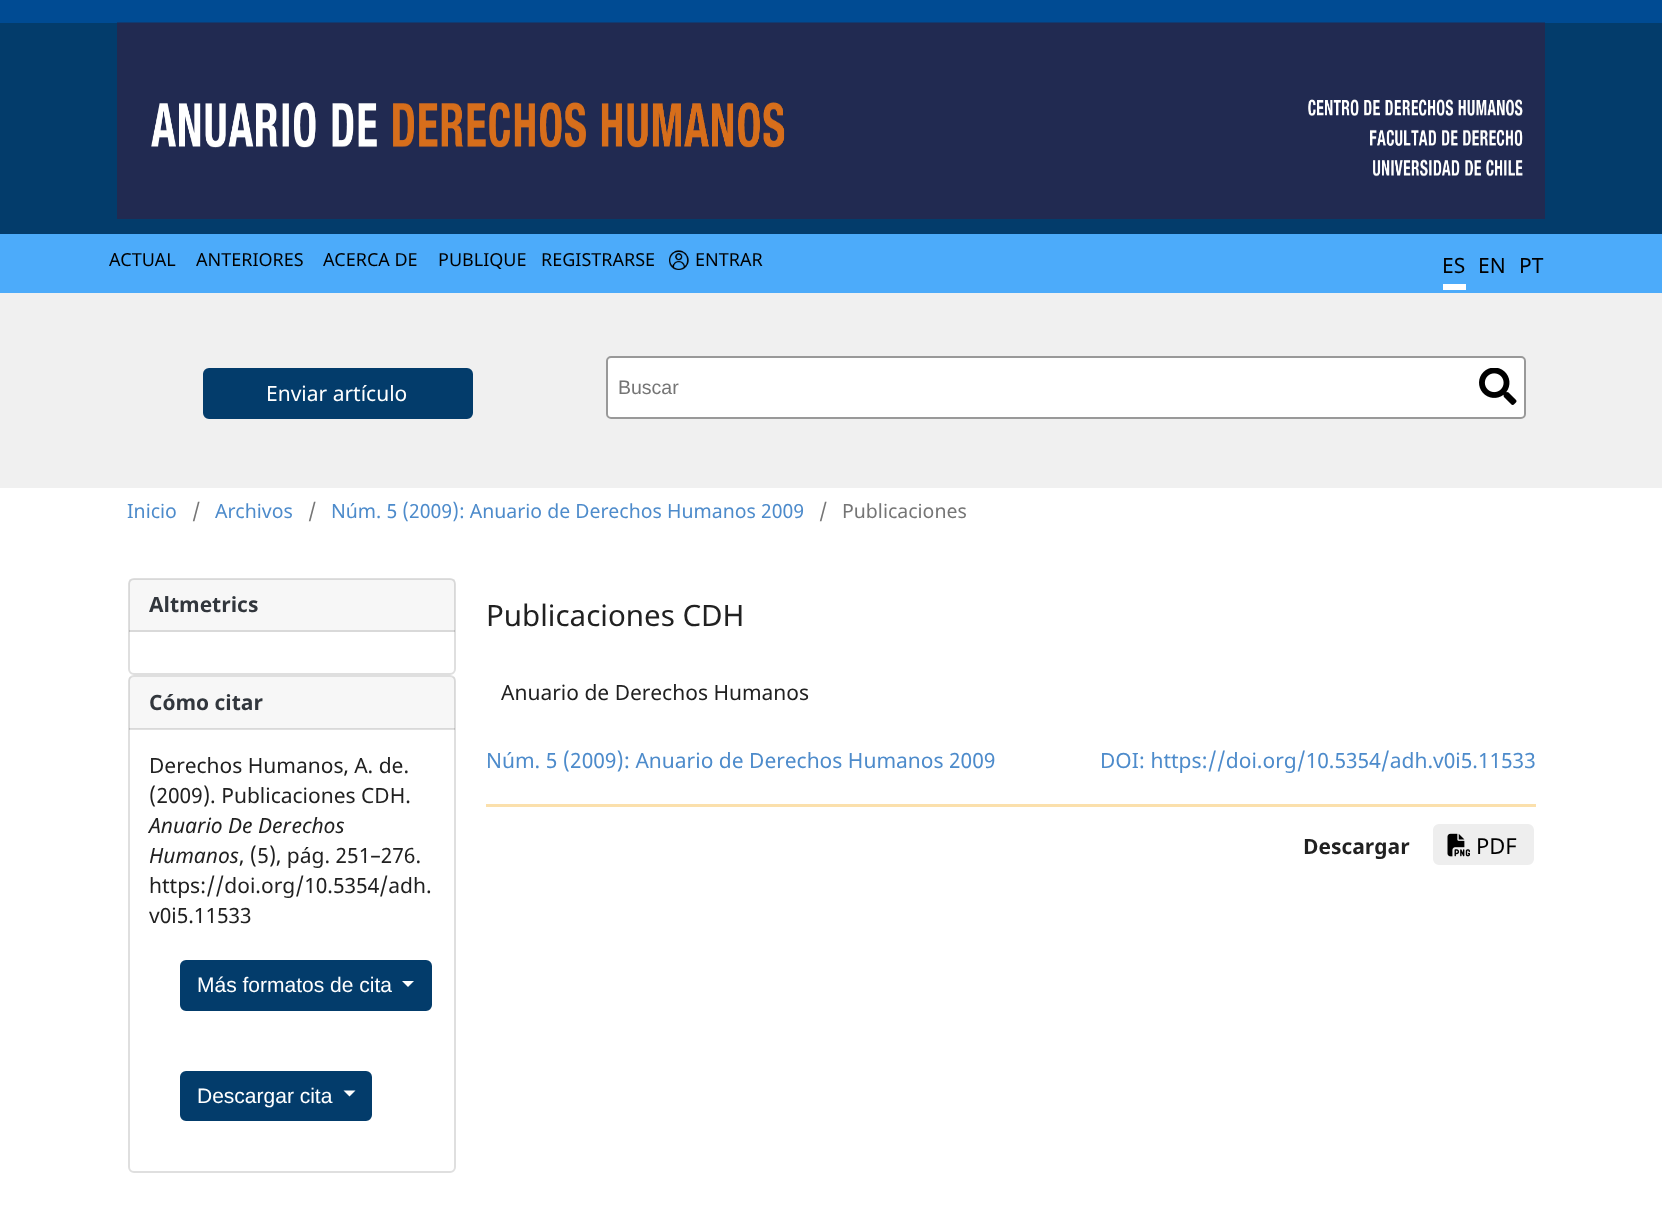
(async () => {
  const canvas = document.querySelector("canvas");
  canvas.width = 1662;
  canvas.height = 1228;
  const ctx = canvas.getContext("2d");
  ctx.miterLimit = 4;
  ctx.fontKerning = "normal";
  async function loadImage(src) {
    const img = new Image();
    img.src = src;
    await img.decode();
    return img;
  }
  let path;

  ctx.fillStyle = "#ffffff";
  ctx.fillRect(0, 0, 1662, 1228);
  ctx.fillStyle = "#004b93";
  ctx.fillRect(0, 0, 1662, 23);
  ctx.fillStyle = "#033c6b";
  ctx.fillRect(0, 23, 1662, 211);
  ctx.drawImage(await loadImage("img/1.png"), 117, 22, 1428, 197);
  ctx.fillStyle = "#f0f0f0";
  ctx.fillRect(0, 293, 1662, 195);
  ctx.fillStyle = "#4cabfa";
  ctx.fillRect(0, 234, 1662, 59);
  ctx.drawImage(await loadImage("img/2.png"), 669, 250, 20, 20);
  ctx.fillStyle = "#ffffff";
  ctx.fillRect(1443, 284, 23, 6);
  ctx.fillStyle = "#033c6b";
  ctx.beginPath();
  ctx.roundRect(204, 369, 268, 49, 5);
  ctx.fill();
  ctx.strokeStyle = "#033c6b";
  ctx.lineWidth = 2;
  ctx.stroke();
  ctx.fillStyle = "#ffffff";
  ctx.beginPath();
  ctx.roundRect(606, 356, 920, 63, 5);
  ctx.fill();
  ctx.beginPath();
  ctx.roundRect(607, 357, 918, 61, 4);
  ctx.strokeStyle = "rgba(0, 0, 0, 0.4)";
  ctx.stroke();
  ctx.drawImage(await loadImage("img/3.png"), 1479, 368, 38, 37);
  ctx.beginPath();
  ctx.roundRect(129, 579, 326, 95, 5);
  ctx.strokeStyle = "#dfdfdf";
  ctx.stroke();
  ctx.fillStyle = "rgba(0, 0, 0, 0.03)";
  ctx.fillRect(129, 579, 326, 53);
  ctx.fillStyle = "rgba(0, 0, 0, 0.12)";
  ctx.fillRect(129, 630, 326, 2);
  ctx.beginPath();
  ctx.roundRect(129, 676, 326, 496, 5);
  ctx.stroke();
  ctx.fillStyle = "rgba(0, 0, 0, 0.03)";
  ctx.fillRect(129, 677, 326, 52);
  ctx.fillStyle = "rgba(0, 0, 0, 0.12)";
  ctx.fillRect(129, 728, 326, 2);
  ctx.fillStyle = "#033c6b";
  ctx.beginPath();
  ctx.roundRect(181, 961, 250, 49, 5);
  ctx.fill();
  ctx.strokeStyle = "#033c6b";
  ctx.stroke();
  ctx.fillStyle = "#ffffff";
  path = new Path2D("M402 981H414L408 987Z");
  ctx.fill(path);
  ctx.fillStyle = "#033c6b";
  ctx.beginPath();
  ctx.roundRect(181, 1072, 190, 48, 5);
  ctx.fill();
  ctx.stroke();
  ctx.fillStyle = "#ffffff";
  path = new Path2D("M343.5 1090.5H355.5L349.5 1096.5Z");
  ctx.fill(path);
  ctx.fillStyle = "#fbe0ac";
  ctx.fillRect(486, 804, 1050, 3);
  ctx.fillStyle = "#eeeeee";
  ctx.beginPath();
  ctx.roundRect(1432, 823, 103, 43, 7);
  ctx.fill();
  ctx.strokeStyle = "#ffffff";
  ctx.stroke();
  ctx.drawImage(await loadImage("img/4.png"), 1447, 833, 23, 24);
  ctx.font = "18px Noto Sans";
  ctx.fillStyle = "#000000";
  for (const [text, x, y] of [
    ["ACTUAL", 109, 266],
    ["ANTERIORES", 196, 266],
    ["ACERCA DE", 323, 266],
    ["PUBLIQUE", 438, 266],
    ["REGISTRARSE", 541, 266],
    ["ENTRAR", 695, 266],
  ]) {
    ctx.fillText(text, x, y);
  }
  ctx.font = "21px Noto Sans";
  for (const [text, x, y] of [
    ["ES", 1442, 273],
    ["EN", 1478, 273],
    ["PT", 1519, 273],
  ]) {
    ctx.fillText(text, x, y);
  }
  ctx.fillStyle = "#ffffff";
  ctx.fillText("Enviar artículo", 266, 401);
  ctx.font = "19.5px Liberation Sans";
  ctx.fillStyle = "#757575";
  ctx.fillText("Buscar", 618, 394);
  ctx.font = "19.5px Noto Sans";
  ctx.fillStyle = "#4d8bcb";
  ctx.fillText("Inicio", 127, 518);
  ctx.fillStyle = "#757575";
  ctx.fillText("/", 192, 518);
  ctx.fillStyle = "#4d8bcb";
  ctx.fillText("Archivos", 215, 518);
  ctx.fillStyle = "#757575";
  ctx.fillText("/", 308, 518);
  ctx.fillStyle = "#4d8bcb";
  ctx.fillText("Núm. 5 (2009): Anuario de Derechos Humanos 2009", 331, 518);
  ctx.fillStyle = "#757575";
  ctx.fillText("/", 819, 518);
  ctx.fillText("Publicaciones", 842, 518);
  ctx.font = "bold 21px Noto Sans";
  ctx.fillStyle = "#32373d";
  ctx.fillText("Altmetrics", 149, 612);
  ctx.fillText("Cómo citar", 149, 710);
  ctx.font = "21px Noto Sans";
  ctx.fillStyle = "#212121";
  ctx.fillText("Derechos Humanos, A. de.", 149, 773);
  ctx.fillText("(2009). Publicaciones CDH.", 149, 803);
  ctx.font = "italic 21px Noto Sans";
  ctx.fillText("Anuario De Derechos", 149, 833);
  ctx.fillText("Humanos", 149, 863);
  ctx.font = "21px Noto Sans";
  for (const [text, x, y] of [
    [", (5), pág. 251–276.", 239, 863],
    ["https://doi.org/10.5354/adh.", 149, 893],
    ["v0i5.11533", 149, 923],
  ]) {
    ctx.fillText(text, x, y);
  }
  ctx.font = "21px Liberation Sans";
  ctx.fillStyle = "#ffffff";
  ctx.fillText("Más formatos de cita", 197, 992);
  ctx.fillText("Descargar cita", 197, 1103);
  ctx.font = "29.5px Noto Sans";
  ctx.fillStyle = "#212121";
  ctx.fillText("Publicaciones CDH", 486, 626);
  ctx.font = "21px Noto Sans";
  ctx.fillText("Anuario de Derechos Humanos", 501, 700);
  ctx.fillStyle = "#4d8bcb";
  ctx.fillText("Núm. 5 (2009): Anuario de Derechos Humanos 2009", 486, 768);
  ctx.fillText("DOI: https://doi.org/10.5354/adh.v0i5.11533", 1100, 768);
  ctx.font = "bold 21px Noto Sans";
  ctx.fillStyle = "#212121";
  ctx.fillText("Descargar", 1303, 854);
  ctx.font = "22px Noto Sans";
  ctx.fillStyle = "#000000";
  ctx.fillText("PDF", 1476, 854);
})();
